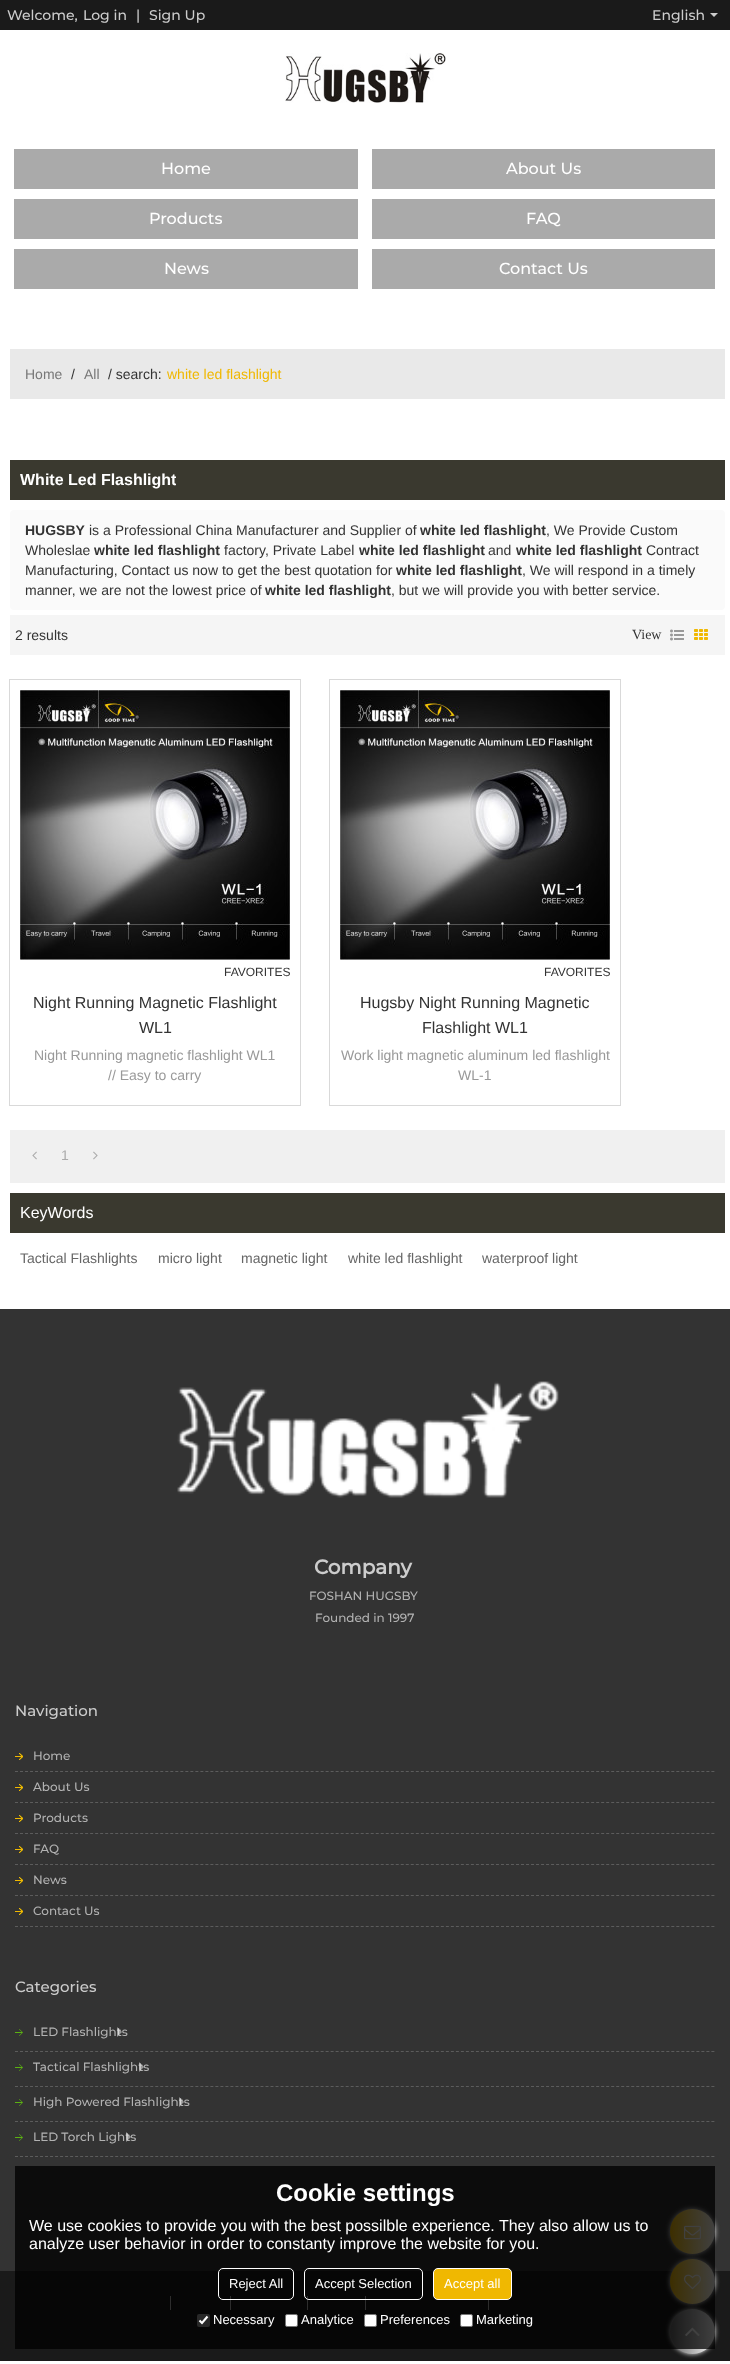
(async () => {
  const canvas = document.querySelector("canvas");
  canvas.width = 730;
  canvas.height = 2364;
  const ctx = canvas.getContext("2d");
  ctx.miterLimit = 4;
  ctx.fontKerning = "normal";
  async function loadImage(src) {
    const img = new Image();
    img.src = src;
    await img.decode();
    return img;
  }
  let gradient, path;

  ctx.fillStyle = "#ffffff";
  ctx.fillRect(0, 0, 730, 2364);
  ctx.fillStyle = "#1a1a1a";
  ctx.fillRect(0, 0, 730, 30);
  ctx.fillStyle = "#cccccc";
  path = new Path2D("M710 13H718L714 17Z");
  ctx.fill(path);
  ctx.drawImage(await loadImage("img/1.png"), 285, 53, 161, 50);
  for (const [x, y, w, h, color] of [
    [14, 149, 344, 40, "#aaaaaa"],
    [372, 149, 343, 40, "#aaaaaa"],
    [14, 199, 344, 40, "#aaaaaa"],
    [372, 199, 343, 40, "#aaaaaa"],
    [14, 249, 344, 40, "#aaaaaa"],
    [372, 249, 343, 40, "#aaaaaa"],
    [10, 349, 715, 50, "#e9e9e9"],
    [10, 460, 715, 40, "#3a392f"],
  ]) {
    ctx.fillStyle = color;
    ctx.fillRect(x, y, w, h);
  }
  ctx.fillStyle = "#fafafa";
  ctx.beginPath();
  ctx.roundRect(10, 510, 715, 100, 4);
  ctx.fill();
  ctx.fillStyle = "#f5f5f5";
  ctx.fillRect(10, 615, 715, 40);
  ctx.drawImage(await loadImage("img/2.png"), 670, 629, 14, 12);
  ctx.drawImage(await loadImage("img/3.png"), 694, 629, 14, 11);
  ctx.strokeStyle = "#d9d9d9";
  ctx.strokeRect(9.5, 679.5, 291, 426);
  ctx.drawImage(await loadImage("img/4.png"), 20, 690, 270, 270);
  ctx.strokeRect(329.5, 679.5, 291, 426);
  ctx.drawImage(await loadImage("img/4.png"), 340, 690, 270, 270);
  ctx.fillStyle = "#f0f0f0";
  ctx.fillRect(10, 1130, 715, 53);
  ctx.drawImage(await loadImage("img/5.png"), 32, 1151, 5, 9);
  ctx.drawImage(await loadImage("img/6.png"), 93, 1151, 5, 9);
  ctx.fillStyle = "#3a392f";
  ctx.fillRect(10, 1193, 715, 40);
  ctx.fillStyle = "#333333";
  ctx.fillRect(0, 1309, 730, 962);
  ctx.drawImage(await loadImage("img/7.png"), 177, 1381, 382, 117);
  path = new Path2D("M15 1771.5H715");
  ctx.strokeStyle = "#5c5c5c";
  ctx.setLineDash([3, 2.01]);
  ctx.stroke(path);
  ctx.drawImage(await loadImage("img/8.png"), 15, 1753, 8, 7);
  path = new Path2D("M15 1802.5H715");
  ctx.stroke(path);
  ctx.drawImage(await loadImage("img/8.png"), 15, 1784, 8, 7);
  path = new Path2D("M15 1833.5H715");
  ctx.stroke(path);
  ctx.drawImage(await loadImage("img/8.png"), 15, 1815, 8, 7);
  path = new Path2D("M15 1864.5H715");
  ctx.stroke(path);
  ctx.drawImage(await loadImage("img/8.png"), 15, 1846, 8, 7);
  path = new Path2D("M15 1895.5H715");
  ctx.stroke(path);
  ctx.drawImage(await loadImage("img/8.png"), 15, 1877, 8, 7);
  path = new Path2D("M15 1926.5H715");
  ctx.stroke(path);
  ctx.drawImage(await loadImage("img/8.png"), 15, 1908, 8, 7);
  path = new Path2D("M15 2051.5H715");
  ctx.stroke(path);
  ctx.drawImage(await loadImage("img/9.png"), 15, 2029, 8, 7);
  path = new Path2D("M15 2086.5H715");
  ctx.stroke(path);
  ctx.drawImage(await loadImage("img/9.png"), 15, 2064, 8, 7);
  path = new Path2D("M15 2121.5H715");
  ctx.stroke(path);
  ctx.drawImage(await loadImage("img/9.png"), 15, 2099, 8, 7);
  path = new Path2D("M15 2156.5H715");
  ctx.stroke(path);
  ctx.drawImage(await loadImage("img/9.png"), 15, 2134, 8, 7);
  for (const [x, y, w, h, color] of [
    [0, 2271, 730, 90, "#1a1a1a"],
    [170, 2296, 1, 14, "#b3b3b3"],
    [230, 2296, 1, 14, "#b3b3b3"],
    [307, 2296, 1, 14, "#b3b3b3"],
    [365, 2296, 1, 14, "#b3b3b3"],
    [488, 2296, 1, 14, "#b3b3b3"],
  ]) {
    ctx.fillStyle = color;
    ctx.fillRect(x, y, w, h);
  }
  ctx.fillStyle = "#eeeeee";
  ctx.filter = "blur(2.5px)";
  ctx.beginPath();
  ctx.roundRect(670, 2209, 45, 45, 22.5);
  ctx.fill();
  ctx.filter = "none";
  gradient = ctx.createLinearGradient(670, 2232, 715, 2232);
  gradient.addColorStop(0, "#f0b801");
  gradient.addColorStop(1, "#ffffff");
  ctx.fillStyle = gradient;
  ctx.beginPath();
  ctx.arc(692.5, 2231.5, 22.5, 0, Math.PI * 2);
  ctx.fill();
  ctx.drawImage(await loadImage("img/10.png"), 684, 2225, 17, 15);
  ctx.fillStyle = "#eeeeee";
  ctx.filter = "blur(2.5px)";
  ctx.beginPath();
  ctx.roundRect(670, 2259, 45, 45, 22.5);
  ctx.fill();
  ctx.filter = "none";
  gradient = ctx.createLinearGradient(670, 2282, 715, 2282);
  gradient.addColorStop(0, "#f0b801");
  gradient.addColorStop(1, "#ffffff");
  ctx.fillStyle = gradient;
  ctx.beginPath();
  ctx.arc(692.5, 2281.5, 22.5, 0, Math.PI * 2);
  ctx.fill();
  ctx.drawImage(await loadImage("img/11.png"), 684, 2274, 17, 16);
  ctx.fillStyle = "#eeeeee";
  ctx.filter = "blur(2.5px)";
  ctx.beginPath();
  ctx.roundRect(670, 2309, 45, 45, 22.5);
  ctx.fill();
  ctx.filter = "none";
  gradient = ctx.createLinearGradient(670, 2332, 715, 2332);
  gradient.addColorStop(0, "#666666");
  gradient.addColorStop(1, "#ffffff");
  ctx.fillStyle = gradient;
  ctx.beginPath();
  ctx.arc(692.5, 2331.5, 22.5, 0, Math.PI * 2);
  ctx.fill();
  ctx.drawImage(await loadImage("img/12.png"), 685, 2327, 15, 9);
  ctx.fillStyle = "rgba(0, 0, 0, 0.75)";
  ctx.fillRect(15, 2166, 700, 183);
  ctx.beginPath();
  ctx.roundRect(218.5, 2268.5, 75, 31, 4.5);
  ctx.strokeStyle = "#ffffff";
  ctx.setLineDash([]);
  ctx.stroke();
  ctx.beginPath();
  ctx.roundRect(304.5, 2268.5, 118, 31, 4.5);
  ctx.stroke();
  ctx.fillStyle = "#f0b801";
  ctx.beginPath();
  ctx.roundRect(433.5, 2268.5, 78, 31, 4.5);
  ctx.fill();
  ctx.stroke();
  ctx.fillStyle = "rgba(118, 118, 118, 0.3)";
  ctx.beginPath();
  ctx.roundRect(197, 2314, 13, 13, 2);
  ctx.fill();
  path = new Path2D("M199.5 2320.5L202 2323L207.5 2316.5");
  ctx.lineWidth = 2.1;
  ctx.stroke(path);
  ctx.fillStyle = "#ffffff";
  ctx.beginPath();
  ctx.roundRect(285.5, 2314.5, 12, 12, 1.5);
  ctx.fill();
  ctx.strokeStyle = "#767676";
  ctx.lineWidth = 1;
  ctx.stroke();
  ctx.beginPath();
  ctx.roundRect(364.5, 2314.5, 12, 12, 1.5);
  ctx.fill();
  ctx.stroke();
  ctx.beginPath();
  ctx.roundRect(460.5, 2314.5, 12, 12, 1.5);
  ctx.fill();
  ctx.stroke();
  ctx.font = "500 14px Montserrat";
  ctx.fillStyle = "#cccccc";
  for (const [text, x, y] of [
    ["Welcome,", 7, 20],
    ["Log in", 83, 20],
    ["|", 136, 20],
    ["Sign Up", 149, 20],
    ["English", 652, 20],
  ]) {
    ctx.fillText(text, x, y);
  }
  ctx.font = "500 16px Montserrat";
  ctx.fillStyle = "#ffffff";
  for (const [text, x, y] of [
    ["Home", 161, 174],
    ["About Us", 506, 174],
    ["Products", 149, 224],
    ["FAQ", 526, 224],
    ["News", 164, 274],
    ["Contact Us", 499, 274],
  ]) {
    ctx.fillText(text, x, y);
  }
  ctx.font = "14px Liberation Sans";
  ctx.fillStyle = "#777777";
  ctx.fillText("Home", 25, 379);
  ctx.fillStyle = "#333333";
  ctx.fillText("/", 71, 379);
  ctx.fillStyle = "#777777";
  ctx.fillText("All", 84, 379);
  ctx.fillStyle = "#333333";
  ctx.fillText("/ search:", 108, 379);
  ctx.fillStyle = "#f0b801";
  ctx.fillText("white led flashlight", 167, 379);
  ctx.save();
  ctx.beginPath();
  ctx.rect(20, 470, 156, 20);
  ctx.clip();
  ctx.font = "bold 16px Liberation Sans";
  ctx.fillStyle = "#ffffff";
  ctx.fillText("White Led Flashlight", 20, 485);
  ctx.restore();
  ctx.font = "bold 14px Liberation Sans";
  ctx.fillStyle = "#333333";
  ctx.fillText("HUGSBY", 25, 535);
  ctx.font = "14px Liberation Sans";
  ctx.fillText("is a Professional China Manufacturer and Supplier of", 89, 535);
  ctx.font = "bold 14px Liberation Sans";
  ctx.fillText("white led flashlight", 420, 535);
  ctx.font = "14px Liberation Sans";
  ctx.fillText(", We Provide Custom", 546, 535);
  ctx.fillText("Wholeslae", 25, 555);
  ctx.font = "bold 14px Liberation Sans";
  ctx.fillText("white led flashlight", 94, 555);
  ctx.font = "14px Liberation Sans";
  ctx.fillText("factory, Private Label", 224, 555);
  ctx.font = "bold 14px Liberation Sans";
  ctx.fillText("white led flashlight", 359, 555);
  ctx.font = "14px Liberation Sans";
  ctx.fillText("and", 488, 555);
  ctx.font = "bold 14px Liberation Sans";
  ctx.fillText("white led flashlight", 516, 555);
  ctx.font = "14px Liberation Sans";
  ctx.fillText("Contract", 646, 555);
  ctx.fillText("Manufacturing, Contact us now to get the best quotation for", 25, 575);
  ctx.font = "bold 14px Liberation Sans";
  ctx.fillText("white led flashlight", 396, 575);
  ctx.font = "14px Liberation Sans";
  ctx.fillText(", We will respond in a timely", 522, 575);
  ctx.fillText("manner, we are not the lowest price of", 25, 595);
  ctx.font = "bold 14px Liberation Sans";
  ctx.fillText("white led flashlight", 265, 595);
  ctx.font = "14px Liberation Sans";
  ctx.fillText(", but we will provide you with better service.", 391, 595);
  ctx.fillText("2 results", 15, 640);
  ctx.font = "14px Liberation Serif";
  ctx.fillText("View", 632, 639);
  ctx.font = "12px Liberation Sans";
  ctx.fillText("FAVORITES", 224, 976);
  ctx.font = "16px Liberation Sans";
  ctx.fillText("Night Running Magnetic Flashlight", 33, 1008);
  ctx.fillText("WL1", 139, 1033);
  ctx.font = "14px Liberation Sans";
  ctx.fillStyle = "#999999";
  ctx.fillText("Night Running magnetic flashlight WL1", 34, 1060);
  ctx.fillText("// Easy to carry", 108, 1080);
  ctx.font = "12px Liberation Sans";
  ctx.fillStyle = "#333333";
  ctx.fillText("FAVORITES", 544, 976);
  ctx.font = "16px Liberation Sans";
  ctx.fillText("Hugsby Night Running Magnetic", 360, 1008);
  ctx.fillText("Flashlight WL1", 422, 1033);
  ctx.font = "14px Liberation Sans";
  ctx.fillStyle = "#999999";
  ctx.fillText("Work light magnetic aluminum led flashlight", 341, 1060);
  ctx.fillText("WL-1", 458, 1080);
  ctx.fillStyle = "#aaaaaa";
  ctx.fillText("1", 61, 1160);
  ctx.font = "16px Liberation Sans";
  ctx.fillStyle = "#ffffff";
  ctx.fillText("KeyWords", 20, 1218);
  ctx.font = "14px Liberation Sans";
  ctx.fillStyle = "#666666";
  for (const [text, x, y] of [
    ["Tactical Flashlights", 20, 1263],
    ["micro light", 158, 1263],
    ["magnetic light", 241, 1263],
    ["white led flashlight", 348, 1263],
    ["waterproof light", 482, 1263],
  ]) {
    ctx.fillText(text, x, y);
  }
  ctx.font = "bold 20px Montserrat";
  ctx.fillStyle = "#cccccc";
  ctx.fillText("Company", 314, 1574);
  ctx.font = "500 12px Montserrat";
  ctx.fillStyle = "#b2b2b2";
  ctx.fillText("FOSHAN HUGSBY", 309, 1600);
  ctx.fillText("Founded in 1997", 315, 1622);
  ctx.font = "500 15px Montserrat";
  ctx.fillStyle = "#cccccc";
  ctx.fillText("Navigation", 15, 1716);
  ctx.font = "500 12px Montserrat";
  ctx.fillStyle = "#b2b2b2";
  for (const [text, x, y] of [
    ["Home", 33, 1760],
    ["About Us", 33, 1791],
    ["Products", 33, 1822],
    ["FAQ", 33, 1853],
    ["News", 33, 1884],
    ["Contact Us", 33, 1915],
  ]) {
    ctx.fillText(text, x, y);
  }
  ctx.font = "500 15px Montserrat";
  ctx.fillStyle = "#cccccc";
  ctx.fillText("Categories", 15, 1992);
  ctx.font = "500 12px Montserrat";
  ctx.fillStyle = "#b2b2b2";
  ctx.fillText("LED Flashlights", 33, 2036);
  ctx.fillStyle = "rgba(255, 255, 255, 0.5)";
  path = new Path2D("M117 2037V2027L122 2032Z");
  ctx.fill(path);
  ctx.fillStyle = "#b2b2b2";
  ctx.fillText("Tactical Flashlights", 33, 2071);
  ctx.fillStyle = "rgba(255, 255, 255, 0.5)";
  path = new Path2D("M139 2072V2062L144 2067Z");
  ctx.fill(path);
  ctx.fillStyle = "#b2b2b2";
  ctx.fillText("High Powered Flashlights", 33, 2106);
  ctx.fillStyle = "rgba(255, 255, 255, 0.5)";
  path = new Path2D("M179 2107V2097L184 2102Z");
  ctx.fill(path);
  ctx.fillStyle = "#b2b2b2";
  ctx.fillText("LED Torch Lights", 33, 2141);
  ctx.fillStyle = "rgba(255, 255, 255, 0.5)";
  path = new Path2D("M126 2142V2132L131 2137Z");
  ctx.fill(path);
  ctx.font = "bold 24px Liberation Sans";
  ctx.fillStyle = "#ffffff";
  ctx.fillText("Cookie settings", 276, 2201);
  ctx.font = "16px Liberation Sans";
  ctx.fillText("We use cookies to provide you with the best possilble experience. They also allow us to", 29, 2231);
  ctx.fillText("analyze user behavior in order to constanty improve the website for you.", 29, 2249);
  ctx.font = "13px Liberation Sans";
  for (const [text, x, y] of [
    ["Reject All", 229, 2288],
    ["Accept Selection", 315, 2288],
    ["Accept all", 444, 2288],
    ["Necessary", 213, 2324],
    ["Analytice", 301, 2324],
    ["Preferences", 380, 2324],
    ["Marketing", 476, 2324],
  ]) {
    ctx.fillText(text, x, y);
  }
})();
